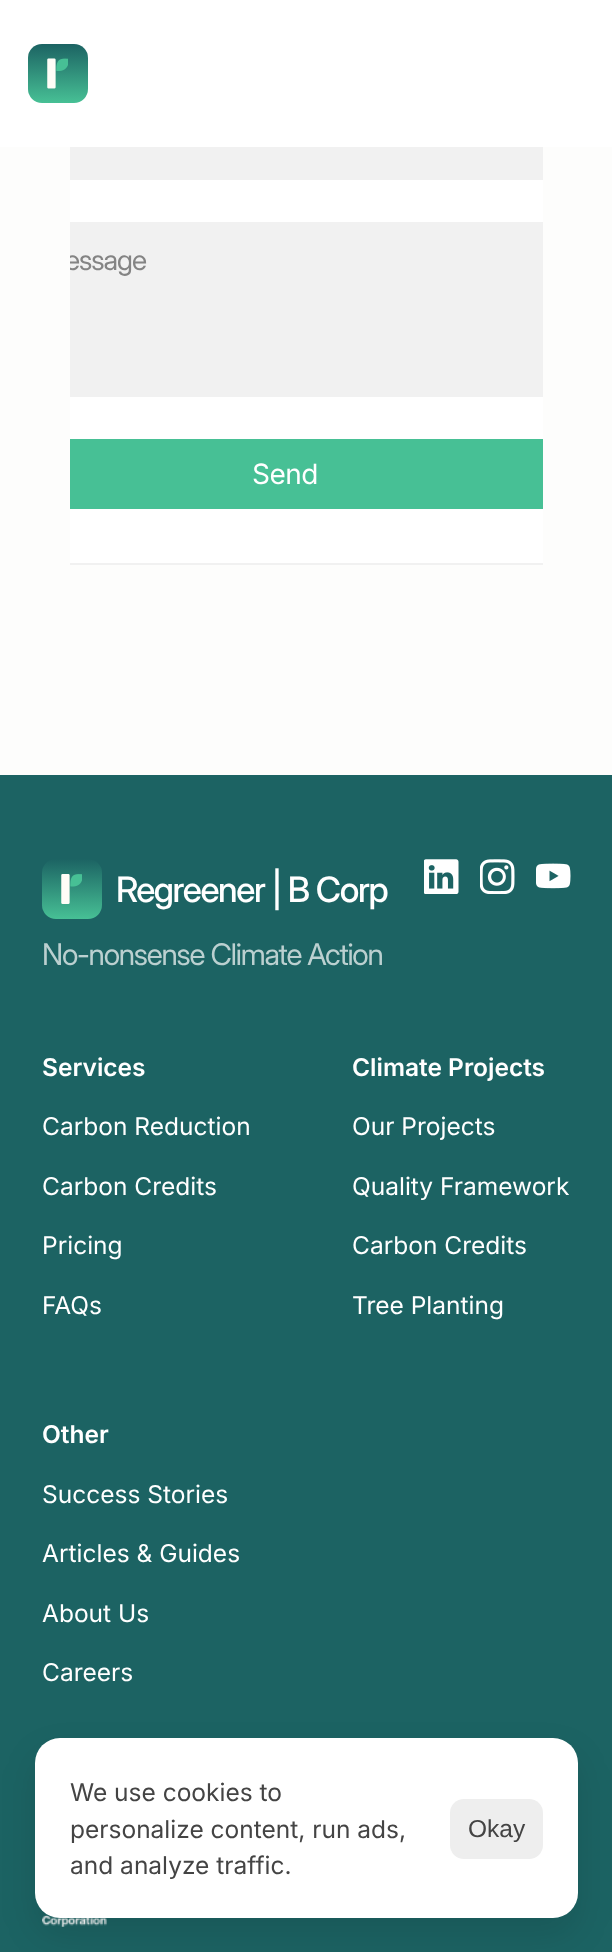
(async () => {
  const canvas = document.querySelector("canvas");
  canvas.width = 612;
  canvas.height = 1952;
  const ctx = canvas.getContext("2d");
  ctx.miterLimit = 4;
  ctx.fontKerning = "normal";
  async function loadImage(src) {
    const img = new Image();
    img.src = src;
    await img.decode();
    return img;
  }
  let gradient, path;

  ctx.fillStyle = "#fdfdfc";
  ctx.fillRect(0, 0, 612, 1952);
  ctx.fillStyle = "#ffffff";
  ctx.fillRect(70, 147, 473, 416);
  ctx.save();
  ctx.beginPath();
  ctx.rect(70, 0, 473, 565);
  ctx.clip();
  ctx.fillStyle = "rgba(184, 184, 184, 0.2)";
  path = new Path2D("M-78 105H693C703 105 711 113 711 123V162C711 172 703 180 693 180H-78C-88 180-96 172-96 162V123C-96 113-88 105-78 105Z");
  ctx.fill(path);
  ctx.restore();
  ctx.fillStyle = "#47c095";
  ctx.fillRect(70, 439, 473, 70);
  ctx.fillStyle = "#1c6363";
  ctx.fillRect(0, 775, 612, 1177);
  gradient = ctx.createLinearGradient(72, 859, 72, 919);
  gradient.addColorStop(0, "#1c6363");
  gradient.addColorStop(1, "#47c095");
  ctx.fillStyle = gradient;
  ctx.beginPath();
  ctx.roundRect(42, 859, 60, 60, 14);
  ctx.fill();
  ctx.drawImage(await loadImage("img/2.png"), 61, 874, 21, 30);
  ctx.drawImage(await loadImage("img/3.png"), 424, 859, 35, 35);
  ctx.drawImage(await loadImage("img/4.png"), 480, 859, 35, 35);
  ctx.drawImage(await loadImage("img/5.png"), 536, 863, 35, 26);
  ctx.drawImage(await loadImage("img/6.png"), 42, 1910, 65, 17);
  ctx.fillStyle = "rgba(0, 0, 0, 0.1)";
  ctx.filter = "blur(17.5px)";
  ctx.beginPath();
  ctx.roundRect(35, 1755, 543, 181, 25);
  ctx.fill();
  ctx.filter = "none";
  ctx.fillStyle = "#ffffff";
  ctx.beginPath();
  ctx.roundRect(35, 1738, 543, 180, 25);
  ctx.fill();
  ctx.fillStyle = "#eeeeee";
  ctx.beginPath();
  ctx.roundRect(450, 1799, 93, 60, 14);
  ctx.fill();
  ctx.save();
  ctx.beginPath();
  ctx.rect(70, 222, 473, 175);
  ctx.clip();
  ctx.letterSpacing = "-1px";
  ctx.font = "28px Inter Display";
  ctx.fillStyle = "#777777";
  ctx.fillText("essage", 65, 270);
  ctx.restore();
  ctx.save();
  ctx.beginPath();
  ctx.rect(70, 0, 473, 565);
  ctx.clip();
  ctx.fillStyle = "rgba(184, 184, 184, 0.2)";
  path = new Path2D("M-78 222H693C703 222 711 230 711 240V379C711 389 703 397 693 397H-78C-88 397-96 389-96 379V240C-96 230-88 222-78 222Z");
  ctx.fill(path);
  ctx.beginPath();
  ctx.roundRect(-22, -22, 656, 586, 20);
  ctx.strokeStyle = "#f1f1f1";
  ctx.lineWidth = 2;
  ctx.stroke();
  ctx.restore();
  ctx.fillStyle = "#ffffff";
  ctx.fillRect(0, 0, 612, 147);
  gradient = ctx.createLinearGradient(58, 44, 58, 103);
  gradient.addColorStop(0, "#1c6363");
  gradient.addColorStop(1, "#47c095");
  ctx.fillStyle = gradient;
  ctx.beginPath();
  ctx.roundRect(28, 44, 60, 59, 14);
  ctx.fill();
  ctx.drawImage(await loadImage("img/1.png"), 47, 58, 21, 31);
  ctx.letterSpacing = "-0.5px";
  ctx.font = "28px Inter";
  ctx.fillStyle = "#ffffff";
  ctx.fillText("Send", 252, 484);
  ctx.letterSpacing = "-1.4px";
  ctx.font = "500 35px Inter Display";
  ctx.fillText("Regreener | B Corp", 116, 902);
  ctx.letterSpacing = "-1.2px";
  ctx.font = "29.75px Inter Display";
  ctx.fillStyle = "#bbd0d0";
  ctx.fillText("No-nonsense Climate Action", 42, 965);
  ctx.letterSpacing = "0px";
  ctx.font = "600 24.5px Inter";
  ctx.fillStyle = "#ffffff";
  ctx.fillText("Services", 42, 1076);
  ctx.font = "24.5px Inter";
  for (const [text, x, y] of [
    ["Carbon Reduction", 42, 1135],
    ["Carbon Credits", 42, 1195],
    ["Pricing", 42, 1254],
    ["FAQs", 42, 1314],
  ]) {
    ctx.fillText(text, x, y);
  }
  ctx.font = "600 24.5px Inter";
  ctx.fillText("Climate Projects", 352, 1076);
  ctx.font = "24.5px Inter";
  for (const [text, x, y] of [
    ["Our Projects", 352, 1135],
    ["Quality Framework", 352, 1195],
    ["Carbon Credits", 352, 1254],
    ["Tree Planting", 352, 1314],
  ]) {
    ctx.fillText(text, x, y);
  }
  ctx.font = "600 24.5px Inter";
  ctx.fillText("Other", 42, 1443);
  ctx.font = "24.5px Inter";
  for (const [text, x, y] of [
    ["Success Stories", 42, 1503],
    ["Articles & Guides", 42, 1562],
    ["About Us", 42, 1622],
    ["Careers", 42, 1681],
  ]) {
    ctx.fillText(text, x, y);
  }
  ctx.fillStyle = "#444444";
  for (const [text, x, y] of [
    ["We use cookies to", 70, 1801],
    ["personalize content, run ads,", 70, 1838],
    ["and analyze traffic.", 70, 1874],
  ]) {
    ctx.fillText(text, x, y);
  }
  ctx.font = "24.5px Liberation Sans";
  ctx.fillText("Okay", 468, 1837);
})();
